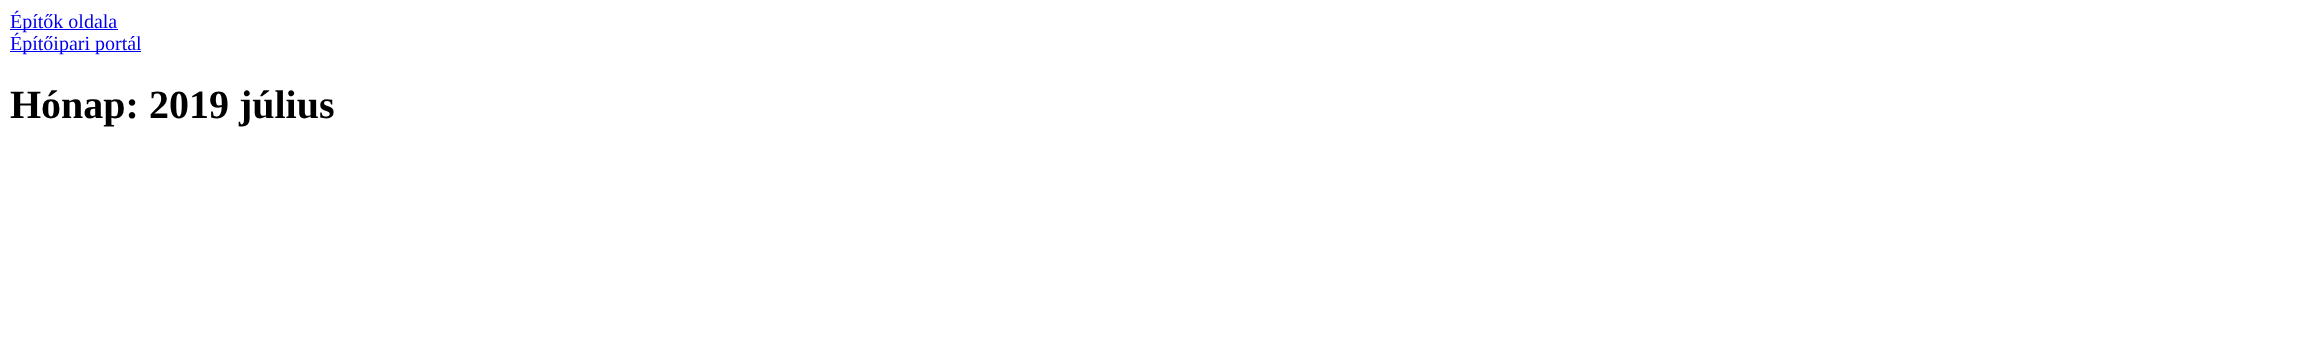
(async () => {
  const canvas = document.querySelector("canvas");
  canvas.width = 2309;
  canvas.height = 344;
  const ctx = canvas.getContext("2d");
  ctx.miterLimit = 4;
  ctx.fontKerning = "normal";

  ctx.fillStyle = "#ffffff";
  ctx.fillRect(0, 0, 2309, 344);
  ctx.fillStyle = "#0000ee";
  ctx.fillRect(10, 29, 108, 1);
  ctx.fillRect(10, 51, 131, 1);
  ctx.font = "20px Liberation Serif";
  ctx.fillText("Építők oldala", 10, 28);
  ctx.fillText("Építőipari portál", 10, 50);
  ctx.font = "bold 40px Liberation Serif";
  ctx.fillStyle = "#000000";
  ctx.fillText("Hónap: 2019 július", 10, 118);
})();
